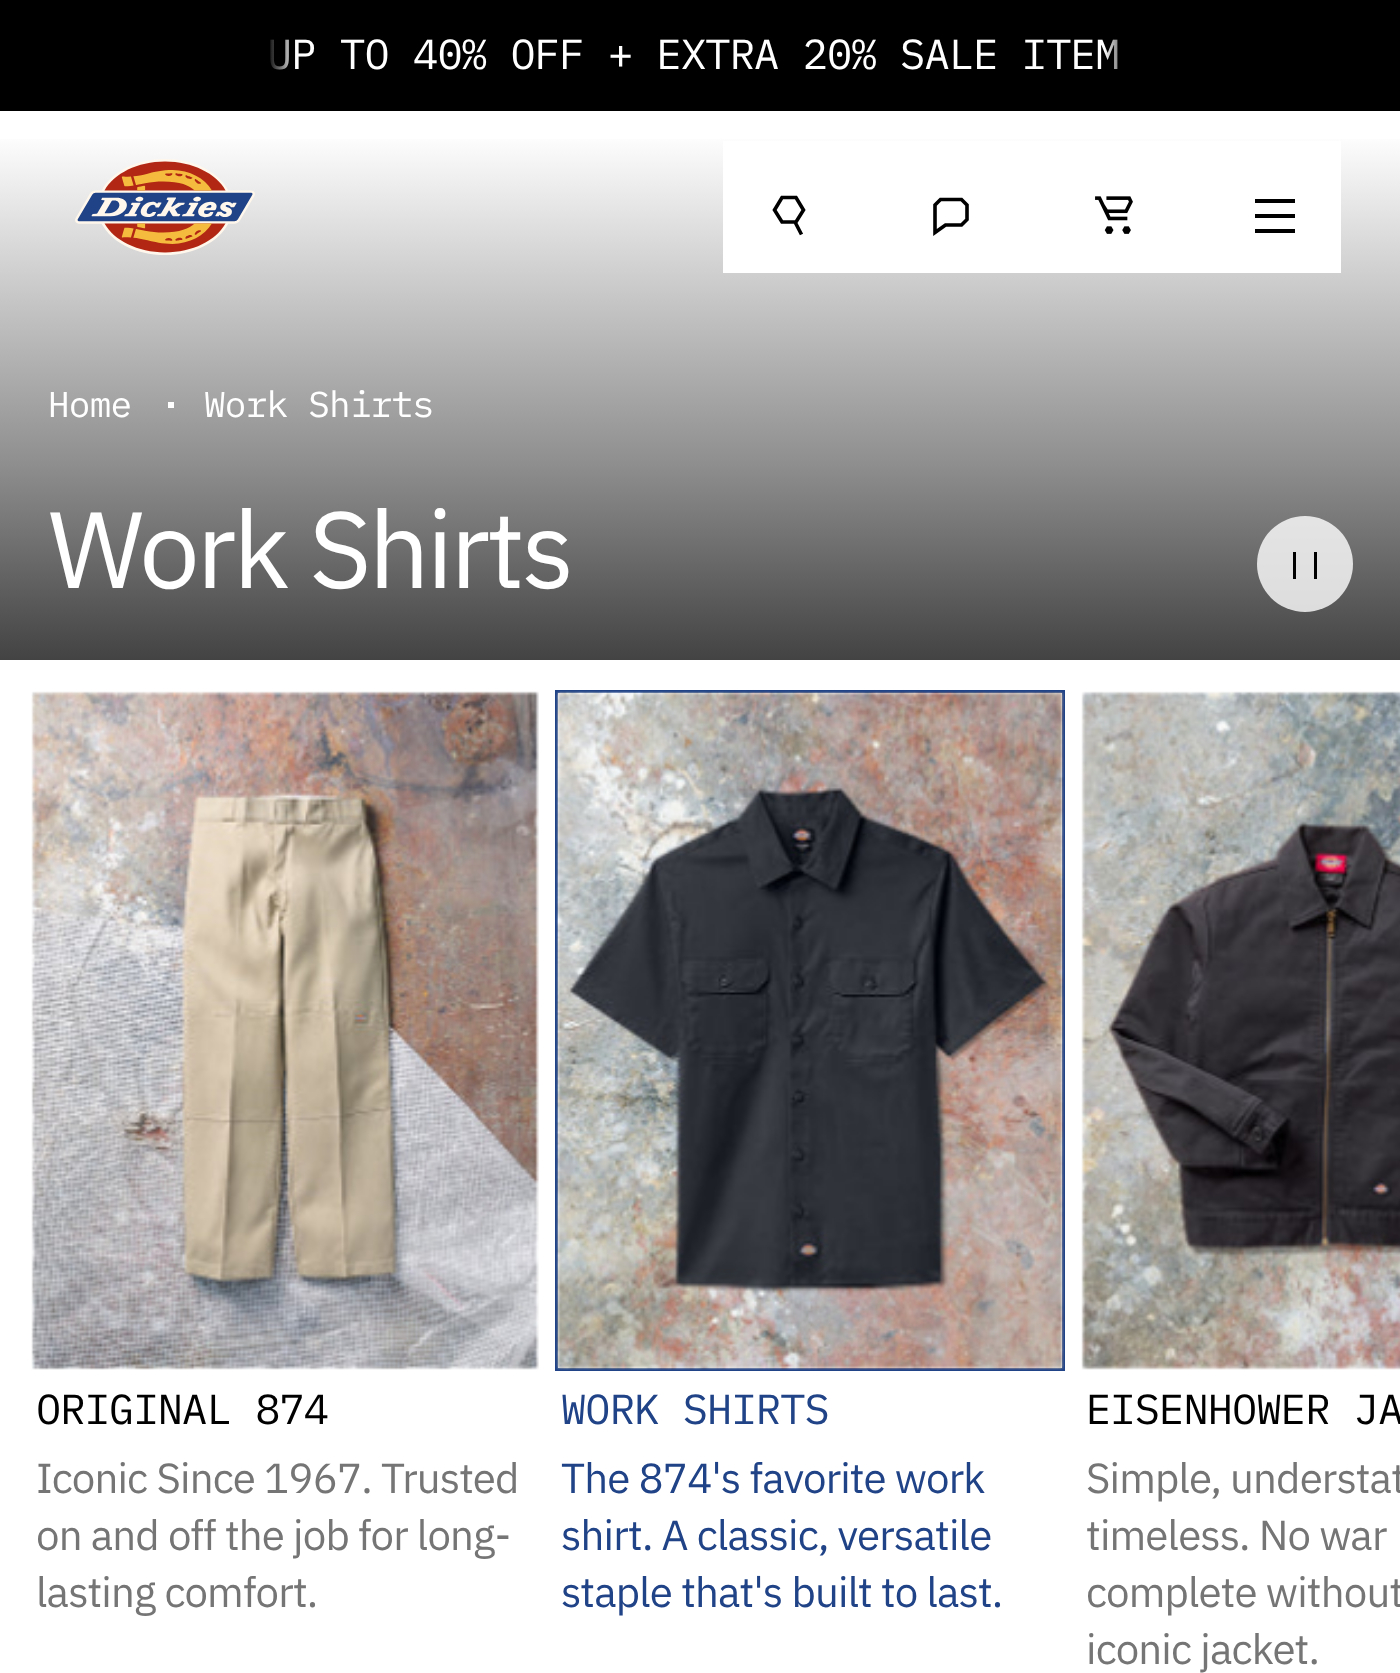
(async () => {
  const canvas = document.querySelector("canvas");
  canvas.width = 1400;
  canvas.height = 1673;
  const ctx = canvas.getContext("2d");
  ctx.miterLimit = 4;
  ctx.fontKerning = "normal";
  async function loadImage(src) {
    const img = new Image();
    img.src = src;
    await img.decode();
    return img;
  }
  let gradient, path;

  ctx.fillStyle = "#ffffff";
  ctx.fillRect(0, 0, 1400, 1673);
  ctx.fillStyle = "#000000";
  ctx.fillRect(0, 0, 1400, 111);
  gradient = ctx.createLinearGradient(701, 0, 701, 660);
  gradient.addColorStop(0.2, "#ffffff");
  gradient.addColorStop(0.7, "#8f8f8f");
  gradient.addColorStop(1, "#434343");
  ctx.fillStyle = gradient;
  ctx.fillRect(0, 139, 1400, 521);
  ctx.drawImage(await loadImage("img/1.png"), 75, 159, 180, 96);
  ctx.fillStyle = "#ffffff";
  ctx.fillRect(723, 141, 618, 132);
  path = new Path2D("M782 222H796L803.5 210L796 197.5H782L774.5 210ZM801.5 234.5L795 222");
  ctx.strokeStyle = "#000000";
  ctx.lineWidth = 3.6;
  ctx.stroke(path);
  path = new Path2D("M967 205L961.5 199.5H940.5L935 205V232.5L945.5 225H961.5L967 219.5Z");
  ctx.stroke(path);
  ctx.drawImage(await loadImage("img/2.png"), 1095, 196, 38, 38);
  for (const [x, y, w, h, color] of [
    [1255, 214, 40, 4, "#000000"],
    [1255, 229, 40, 4, "#000000"],
    [1255, 199, 40, 4, "#000000"],
    [168, 402, 6, 6, "#ffffff"],
  ]) {
    ctx.fillStyle = color;
    ctx.fillRect(x, y, w, h);
  }
  ctx.fillStyle = "rgba(255, 255, 255, 0.8)";
  ctx.beginPath();
  ctx.arc(1305, 564, 48, 0, Math.PI * 2);
  ctx.fill();
  ctx.fillStyle = "#000000";
  ctx.fillRect(1293, 552, 3, 27);
  ctx.fillRect(1314, 552, 3, 27);
  ctx.drawImage(await loadImage("img/3.png"), 31, 691, 508, 679);
  ctx.strokeStyle = "#204387";
  ctx.lineWidth = 3;
  ctx.strokeRect(556.5, 691.5, 507, 678);
  ctx.drawImage(await loadImage("img/4.png"), 556, 691, 508, 679);
  ctx.drawImage(await loadImage("img/5.png"), 1081, 691, 319, 679);
  ctx.letterSpacing = "-0.85px";
  ctx.font = "42px IBM Plex Mono";
  ctx.fillStyle = "#ffffff";
  ctx.fillText("UP TO 40% OFF + EXTRA 20% SALE ITEM", 267, 69);
  gradient = ctx.createLinearGradient(297, 56, 267, 56);
  gradient.addColorStop(0, "rgba(0, 0, 0, 0)");
  gradient.addColorStop(1, "#000000");
  ctx.fillStyle = gradient;
  ctx.fillRect(270, 39, 26, 31);
  gradient = ctx.createLinearGradient(1104, 56, 1134, 56);
  gradient.addColorStop(0, "rgba(0, 0, 0, 0)");
  gradient.addColorStop(1, "#000000");
  ctx.fillStyle = gradient;
  ctx.fillRect(1105, 39, 13, 30);
  ctx.letterSpacing = "-0.75px";
  ctx.font = "36px IBM Plex Mono";
  ctx.fillStyle = "#ffffff";
  ctx.fillText("Home", 48, 417);
  ctx.fillText("Work Shirts", 204, 417);
  ctx.letterSpacing = "-3.25px";
  ctx.font = "108px IBM Plex Sans";
  ctx.fillText("Work Shirts", 48, 588);
  ctx.letterSpacing = "-0.85px";
  ctx.font = "42px IBM Plex Mono";
  ctx.fillStyle = "#000000";
  ctx.fillText("ORIGINAL 874", 36, 1424);
  ctx.font = "42px IBM Plex Sans";
  ctx.fillStyle = "#757575";
  for (const [text, x, y] of [
    ["Iconic Since 1967. Trusted", 36, 1493],
    ["on and off the job for long-", 36, 1550],
    ["lasting comfort.", 36, 1607],
  ]) {
    ctx.fillText(text, x, y);
  }
  ctx.font = "42px IBM Plex Mono";
  ctx.fillStyle = "#204387";
  ctx.fillText("WORK SHIRTS", 561, 1424);
  ctx.font = "42px IBM Plex Sans";
  for (const [text, x, y] of [
    ["The 874's favorite work", 561, 1493],
    ["shirt. A classic, versatile", 561, 1550],
    ["staple that's built to last.", 561, 1607],
  ]) {
    ctx.fillText(text, x, y);
  }
  ctx.font = "42px IBM Plex Mono";
  ctx.fillStyle = "#000000";
  ctx.fillText("EISENHOWER JA", 1086, 1424);
  ctx.font = "42px IBM Plex Sans";
  ctx.fillStyle = "#757575";
  for (const [text, x, y] of [
    ["Simple, understat", 1086, 1493],
    ["timeless. No war", 1086, 1550],
    ["complete without", 1086, 1607],
    ["iconic jacket.", 1086, 1664],
  ]) {
    ctx.fillText(text, x, y);
  }
})();
